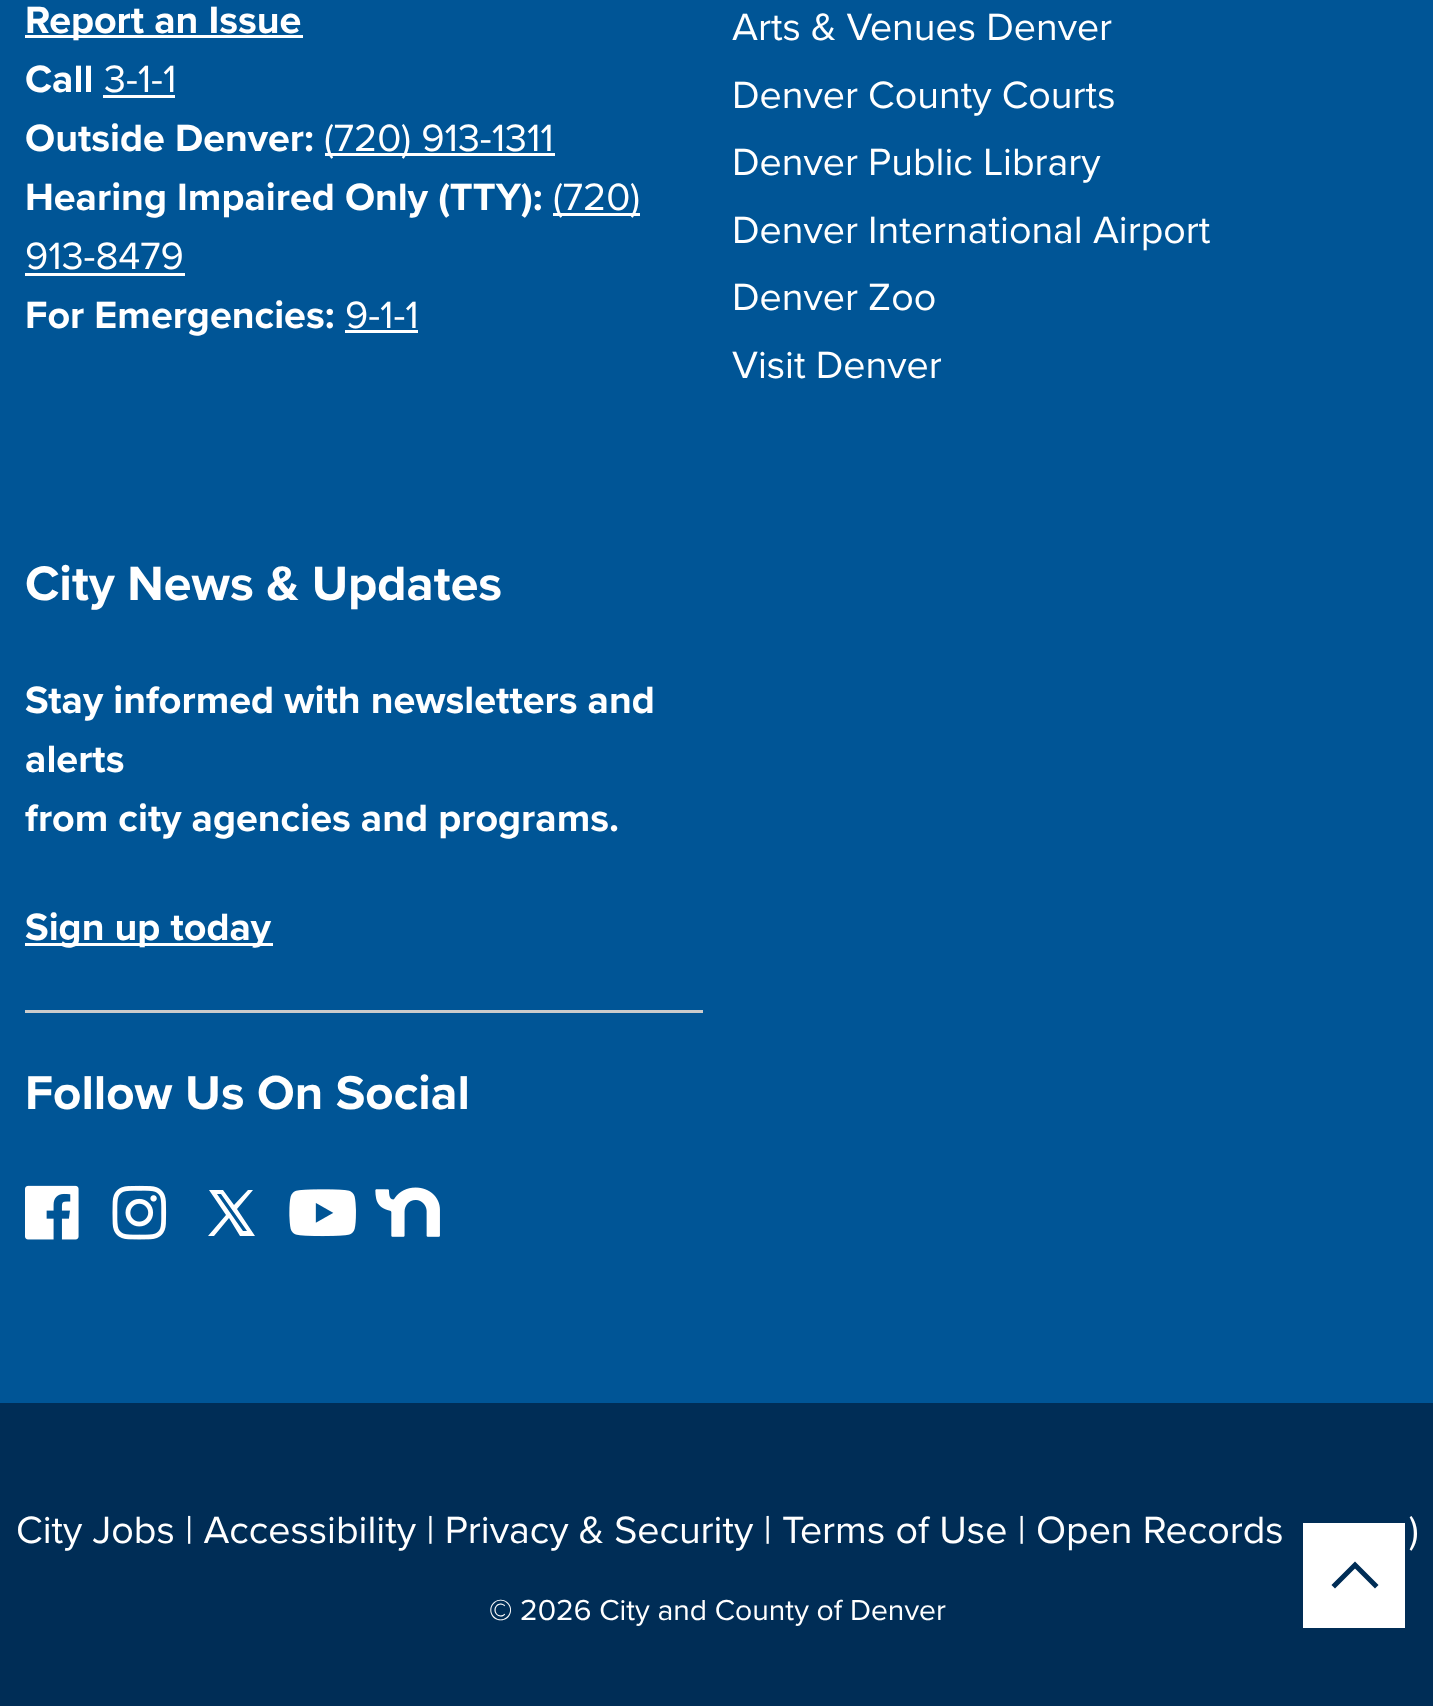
(async () => {
  const canvas = document.querySelector("canvas");
  canvas.width = 1433;
  canvas.height = 1706;
  const ctx = canvas.getContext("2d");
  ctx.miterLimit = 4;
  ctx.fontKerning = "normal";
  async function loadImage(src) {
    const img = new Image();
    img.src = src;
    await img.decode();
    return img;
  }
  let path;

  ctx.fillStyle = "#005596";
  ctx.fillRect(0, 0, 1433, 1706);
  for (const [x, y, w, h, color] of [
    [25, 35, 278, 3, "#ffffff"],
    [103, 95, 72, 3, "#ffffff"],
    [325, 153, 230, 3, "#ffffff"],
    [553, 213, 87, 3, "#ffffff"],
    [25, 273, 160, 3, "#ffffff"],
    [345, 330, 73, 3, "#ffffff"],
    [25, 943, 248, 3, "#ffffff"],
    [25, 1010, 678, 3, "#cccccc"],
  ]) {
    ctx.fillStyle = color;
    ctx.fillRect(x, y, w, h);
  }
  ctx.drawImage(await loadImage("img/1.png"), 25, 1185, 54, 55);
  ctx.drawImage(await loadImage("img/2.png"), 112, 1185, 55, 55);
  ctx.fillStyle = "#ffffff";
  path = new Path2D("M255 1236H240L229 1218L214 1236H208L226 1215L209 1190H223L234 1205L248 1190H253L237 1209ZM221 1194H217L243 1231H247Z");
  ctx.fill(path);
  ctx.drawImage(await loadImage("img/3.png"), 289, 1189, 67, 48);
  ctx.drawImage(await loadImage("img/4.png"), 375, 1187, 65, 50);
  ctx.fillStyle = "#002d56";
  ctx.fillRect(0, 1403, 1433, 303);
  ctx.fillStyle = "#ffffff";
  ctx.fillRect(1303, 1523, 102, 105);
  ctx.drawImage(await loadImage("img/5.png"), 1331, 1561, 48, 28);
  ctx.font = "bold 39.4px Proxima Nova";
  ctx.fillText("Report an Issue", 25, 33);
  ctx.fillText("Call", 25, 92);
  ctx.font = "39.4px Proxima Nova";
  ctx.fillText("3-1-1", 104, 92);
  ctx.font = "bold 39.4px Proxima Nova";
  ctx.fillText("Outside Denver:", 25, 151);
  ctx.font = "39.4px Proxima Nova";
  ctx.fillText("(720) 913-1311", 324, 151);
  ctx.font = "bold 39.4px Proxima Nova";
  ctx.fillText("Hearing Impaired Only (TTY):", 25, 210);
  ctx.font = "39.4px Proxima Nova";
  ctx.fillText("(720)", 553, 210);
  ctx.fillText("913-8479", 25, 269);
  ctx.font = "bold 39.4px Proxima Nova";
  ctx.fillText("For Emergencies:", 25, 328);
  ctx.font = "39.4px Proxima Nova";
  for (const [text, x, y] of [
    ["9-1-1", 345, 328],
    ["Arts & Venues Denver", 732, 40],
    ["Denver County Courts", 732, 108],
    ["Denver Public Library", 732, 175],
    ["Denver International Airport", 732, 243],
    ["Denver Zoo", 732, 310],
    ["Visit Denver", 732, 378],
  ]) {
    ctx.fillText(text, x, y);
  }
  ctx.font = "bold 50px Proxima Nova";
  ctx.fillText("City News & Updates", 25, 600);
  ctx.font = "bold 39.4px Proxima Nova";
  for (const [text, x, y] of [
    ["Stay informed with newsletters and", 25, 713],
    ["alerts", 25, 772],
    ["from city agencies and programs.", 25, 831],
    ["Sign up today", 25, 940],
  ]) {
    ctx.fillText(text, x, y);
  }
  ctx.font = "bold 49.25px Proxima Nova";
  ctx.fillText("Follow Us On Social", 25, 1109);
  ctx.font = "39.4px Proxima Nova";
  ctx.fillText("City Jobs | Accessibility | Privacy & Security | Terms of Use | Open Records", 16, 1543);
  ctx.fillText(")", 1409, 1543);
  ctx.font = "30px Proxima Nova";
  ctx.fillText("© 2026 City and County of Denver", 489, 1620);
})();
